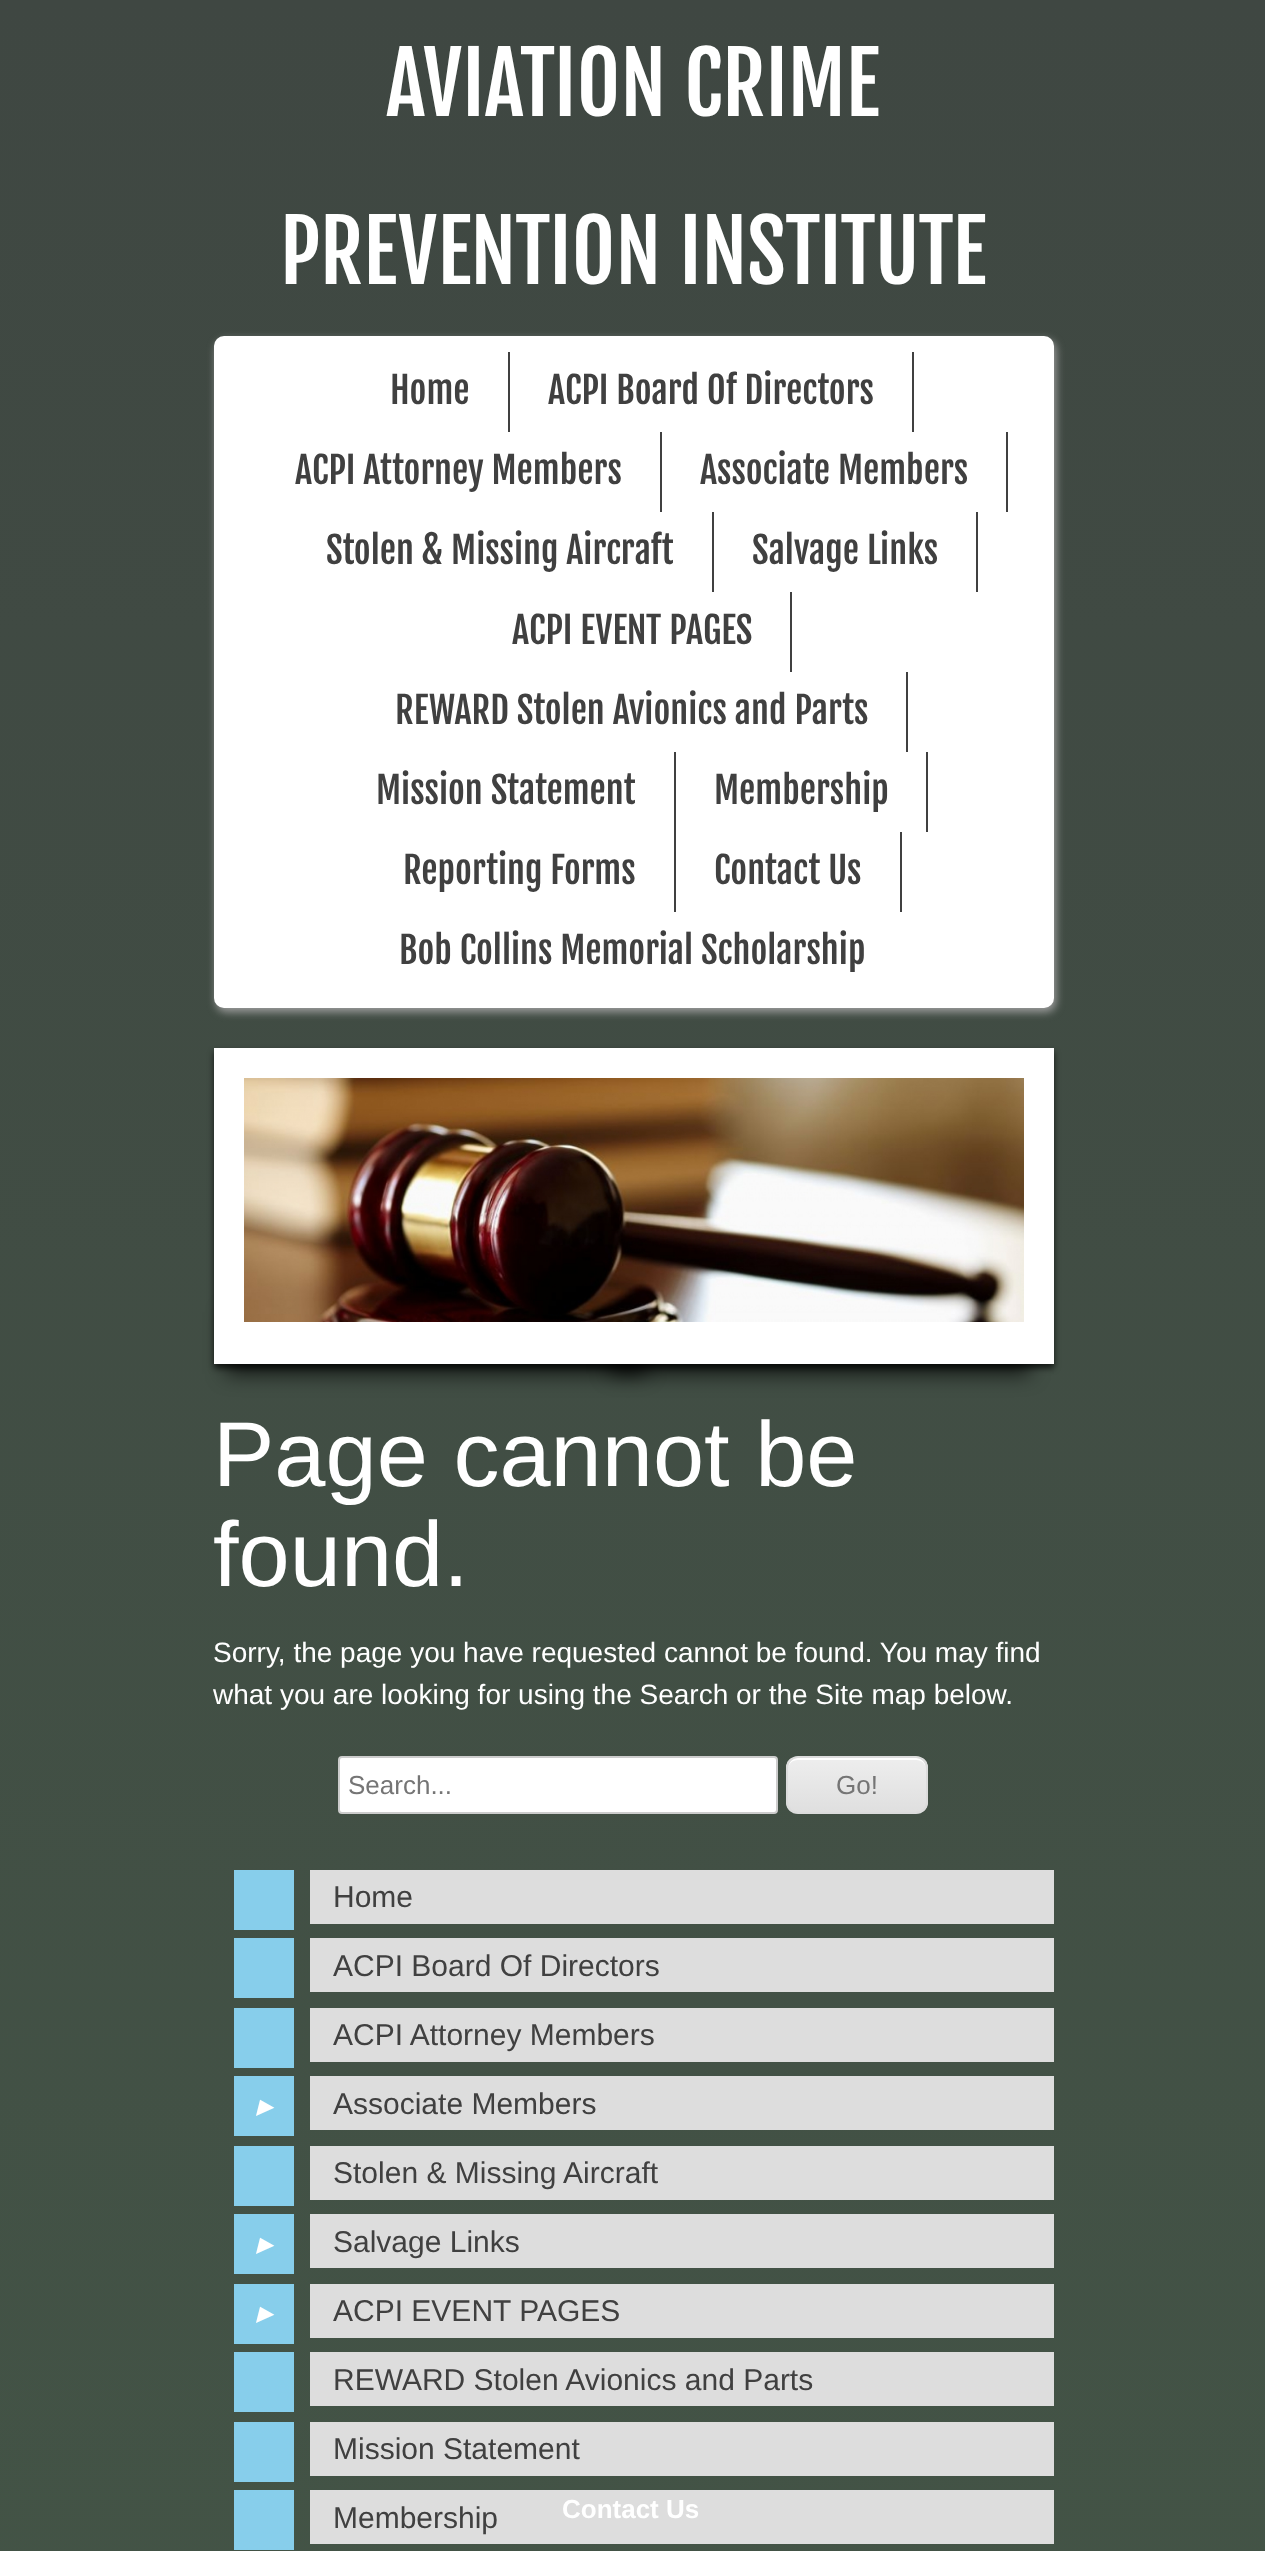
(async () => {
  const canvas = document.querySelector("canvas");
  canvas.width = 1265;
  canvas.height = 2551;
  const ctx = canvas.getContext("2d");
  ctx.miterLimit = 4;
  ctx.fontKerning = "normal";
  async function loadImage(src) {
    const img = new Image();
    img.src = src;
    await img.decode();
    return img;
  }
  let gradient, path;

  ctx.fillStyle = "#ffffff";
  ctx.fillRect(0, 0, 1265, 2551);
  gradient = ctx.createLinearGradient(633, 0, 633, 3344);
  gradient.addColorStop(0, "#3f4742");
  gradient.addColorStop(1, "#445747");
  ctx.fillStyle = gradient;
  ctx.fillRect(0, 0, 1265, 2551);
  ctx.fillStyle = "#9e9e9e";
  ctx.filter = "blur(4px)";
  ctx.beginPath();
  ctx.roundRect(216, 340, 840, 672, 10);
  ctx.fill();
  ctx.filter = "none";
  ctx.fillStyle = "#ffffff";
  ctx.beginPath();
  ctx.roundRect(214, 336, 840, 672, 10);
  ctx.fill();
  for (const [x, y, w, h, color] of [
    [508, 352, 2, 80, "#404040"],
    [912, 352, 2, 80, "#404040"],
    [660, 432, 2, 80, "#404040"],
    [1006, 432, 2, 80, "#404040"],
    [712, 512, 2, 80, "#404040"],
    [976, 512, 2, 80, "#404040"],
    [790, 592, 2, 80, "#404040"],
    [906, 672, 2, 80, "#404040"],
    [674, 752, 2, 160, "#404040"],
    [926, 752, 2, 80, "#404040"],
    [900, 832, 2, 80, "#404040"],
  ]) {
    ctx.fillStyle = color;
    ctx.fillRect(x, y, w, h);
  }
  ctx.fillStyle = "rgba(0, 0, 0, 0.7)";
  ctx.filter = "blur(3px)";
  ctx.beginPath();
  ctx.rect(214, 1052, 840, 316);
  ctx.fill();
  ctx.filter = "none";
  ctx.filter = "blur(10px)";
  ctx.beginPath();
  ctx.rect(226, 1312, 420, 62);
  ctx.fill();
  ctx.filter = "none";
  ctx.filter = "blur(10px)";
  ctx.beginPath();
  ctx.rect(610, 1312, 420, 62);
  ctx.fill();
  ctx.filter = "none";
  ctx.fillStyle = "#ffffff";
  ctx.fillRect(214, 1048, 840, 316);
  ctx.drawImage(await loadImage("img/1.png"), 244, 1078, 780, 244);
  ctx.beginPath();
  ctx.roundRect(339, 1757, 438, 56, 3);
  ctx.fill();
  ctx.strokeStyle = "#cccccc";
  ctx.lineWidth = 2;
  ctx.stroke();
  ctx.save();
  ctx.beginPath();
  ctx.roundRect(786, 1756, 142, 58, 12);
  ctx.clip();
  gradient = ctx.createLinearGradient(788, 1758, 788, 1812);
  gradient.addColorStop(0.05, "#ededed");
  gradient.addColorStop(1, "#dfdfdf");
  ctx.fillStyle = gradient;
  ctx.fillRect(786, 1758, 142, 54);
  ctx.restore();
  path = new Path2D("M798 1760H916C922 1760 926 1764 926 1770C926 1753 908 1758 896 1758H818C806 1758 788 1753 788 1770C788 1764 792 1760 798 1760Z");
  ctx.fill(path);
  ctx.beginPath();
  ctx.roundRect(787, 1757, 140, 56, 11);
  ctx.strokeStyle = "#dcdcdc";
  ctx.stroke();
  for (const [x, y, w, h, color] of [
    [234, 1870, 60, 60, "#87ceeb"],
    [310, 1870, 744, 54, "#dddddd"],
    [234, 1938, 60, 60, "#87ceeb"],
    [310, 1938, 744, 54, "#dddddd"],
    [234, 2008, 60, 60, "#87ceeb"],
    [310, 2008, 744, 54, "#dddddd"],
    [234, 2076, 60, 60, "#87ceeb"],
    [310, 2076, 744, 54, "#dddddd"],
    [234, 2146, 60, 60, "#87ceeb"],
    [310, 2146, 744, 54, "#dddddd"],
    [234, 2214, 60, 60, "#87ceeb"],
    [310, 2214, 744, 54, "#dddddd"],
    [234, 2284, 60, 60, "#87ceeb"],
    [310, 2284, 744, 54, "#dddddd"],
    [234, 2352, 60, 60, "#87ceeb"],
    [310, 2352, 744, 54, "#dddddd"],
    [234, 2422, 60, 60, "#87ceeb"],
    [310, 2422, 744, 54, "#dddddd"],
    [234, 2490, 60, 60, "#87ceeb"],
    [310, 2490, 744, 54, "#dddddd"],
  ]) {
    ctx.fillStyle = color;
    ctx.fillRect(x, y, w, h);
  }
  ctx.font = "84px Fjalla One";
  ctx.fillStyle = "#ffffff";
  ctx.fillText("AVIATION CRIME", 386, 116);
  ctx.fillText("PREVENTION INSTITUTE", 280, 284);
  ctx.font = "36.4px Fjalla One";
  ctx.fillStyle = "#404040";
  for (const [text, x, y] of [
    ["Home", 390, 404],
    ["ACPI Board Of Directors", 548, 404],
    ["ACPI Attorney Members", 295, 484],
    ["Associate Members", 700, 484],
    ["Stolen & Missing Aircraft", 326, 564],
    ["Salvage Links", 752, 564],
    ["ACPI EVENT PAGES", 512, 644],
    ["REWARD Stolen Avionics and Parts", 395, 724],
    ["Mission Statement", 376, 804],
    ["Membership", 714, 804],
    ["Reporting Forms", 403, 884],
    ["Contact Us", 714, 884],
    ["Bob Collins Memorial Scholarship", 399, 964],
  ]) {
    ctx.fillText(text, x, y);
  }
  ctx.font = "92px Liberation Sans";
  ctx.fillStyle = "#ffffff";
  ctx.fillText("Page cannot be", 213, 1486);
  ctx.fillText("found.", 213, 1586);
  ctx.font = "28px Liberation Sans";
  ctx.fillText("Sorry, the page you have requested cannot be found. You may find", 213, 1662);
  ctx.fillText("what you are looking for using the Search or the Site map below.", 213, 1704);
  ctx.font = "26px Liberation Sans";
  ctx.fillStyle = "#757575";
  ctx.fillText("Search...", 348, 1794);
  ctx.fillText("Go!", 836, 1794);
  ctx.font = "30px Liberation Sans";
  ctx.fillStyle = "#404040";
  for (const [text, x, y] of [
    ["Home", 333, 1907],
    ["ACPI Board Of Directors", 333, 1976],
    ["ACPI Attorney Members", 333, 2045],
  ]) {
    ctx.fillText(text, x, y);
  }
  ctx.font = "italic bold 30px DejaVu Sans";
  ctx.fillStyle = "#ffffff";
  ctx.fillText("▸", 256, 2116);
  ctx.font = "30px Liberation Sans";
  ctx.fillStyle = "#404040";
  ctx.fillText("Associate Members", 333, 2114);
  ctx.fillText("Stolen & Missing Aircraft", 333, 2183);
  ctx.font = "italic bold 30px DejaVu Sans";
  ctx.fillStyle = "#ffffff";
  ctx.fillText("▸", 256, 2254);
  ctx.font = "30px Liberation Sans";
  ctx.fillStyle = "#404040";
  ctx.fillText("Salvage Links", 333, 2252);
  ctx.font = "italic bold 30px DejaVu Sans";
  ctx.fillStyle = "#ffffff";
  ctx.fillText("▸", 256, 2323);
  ctx.font = "30px Liberation Sans";
  ctx.fillStyle = "#404040";
  for (const [text, x, y] of [
    ["ACPI EVENT PAGES", 333, 2321],
    ["REWARD Stolen Avionics and Parts", 333, 2390],
    ["Mission Statement", 333, 2459],
    ["Membership", 333, 2528],
  ]) {
    ctx.fillText(text, x, y);
  }
  ctx.font = "bold 26px Liberation Sans";
  ctx.fillStyle = "#ffffff";
  ctx.fillText("Contact Us", 562, 2518);
})();
